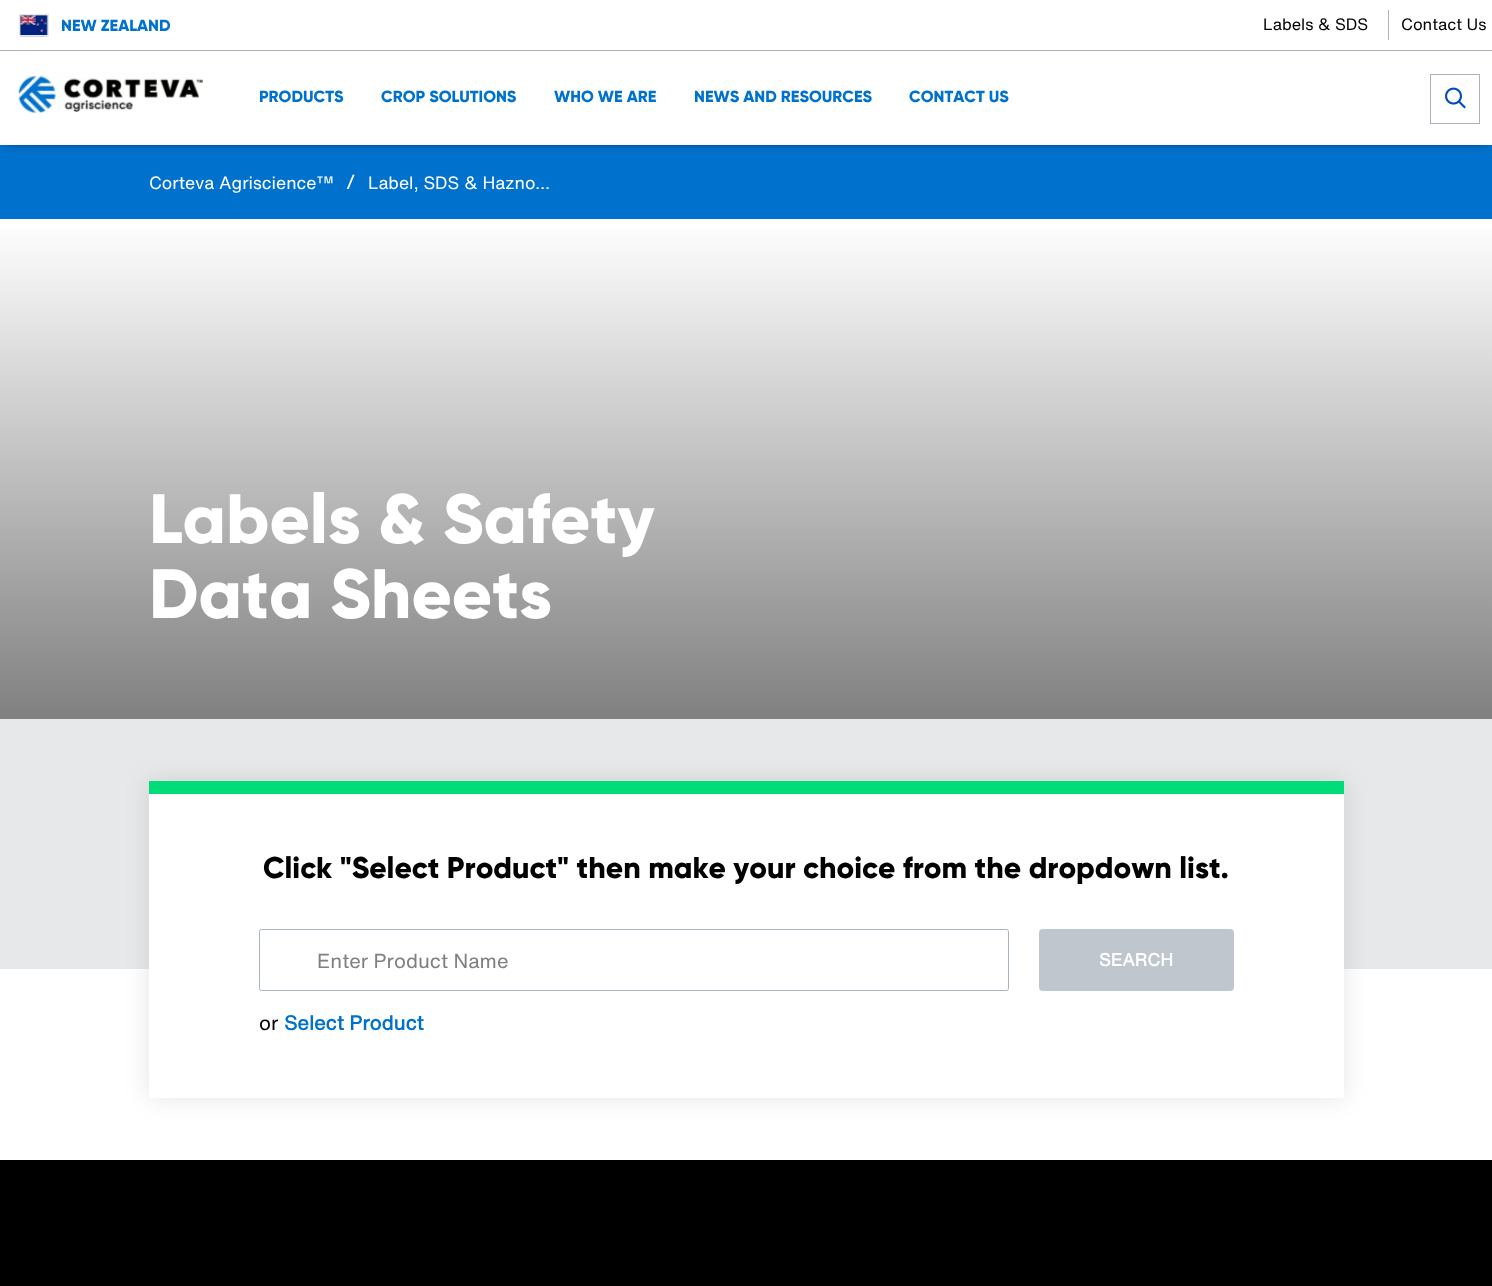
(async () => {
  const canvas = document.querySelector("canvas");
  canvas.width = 1492;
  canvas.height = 1286;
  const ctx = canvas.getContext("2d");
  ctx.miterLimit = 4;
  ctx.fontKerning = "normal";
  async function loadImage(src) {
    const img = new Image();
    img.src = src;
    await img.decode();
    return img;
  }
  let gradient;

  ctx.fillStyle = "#ffffff";
  ctx.fillRect(0, 0, 1492, 1286);
  ctx.fillStyle = "#0072ce";
  ctx.fillRect(0, 145, 1492, 74);
  ctx.save();
  ctx.beginPath();
  ctx.rect(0, 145, 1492, 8);
  ctx.clip();
  ctx.fillStyle = "rgba(0, 0, 0, 0.75)";
  ctx.filter = "blur(6px)";
  ctx.beginPath();
  ctx.rect(5, 6, 1483, 135);
  ctx.fill();
  ctx.filter = "none";
  ctx.restore();
  ctx.drawImage(await loadImage("img/1.png"), 19, 15, 29, 22);
  ctx.strokeStyle = "#e6e8ea";
  ctx.strokeRect(19.5, 14.5, 29, 21);
  ctx.fillStyle = "#a9b3bd";
  ctx.fillRect(1388, 10, 1, 30);
  ctx.fillRect(0, 50, 1492, 1);
  ctx.drawImage(await loadImage("img/2.png"), 18, 75, 185, 38);
  ctx.strokeStyle = "#a9b3bd";
  ctx.strokeRect(1430.5, 74.5, 49, 49);
  ctx.drawImage(await loadImage("img/3.png"), 1445, 87, 21, 22);
  gradient = ctx.createLinearGradient(746, 719, 746, 219);
  gradient.addColorStop(0, "#808080");
  gradient.addColorStop(1, "#ffffff");
  ctx.fillStyle = gradient;
  ctx.fillRect(0, 229, 1492, 490);
  ctx.fillStyle = "#e6e8ea";
  ctx.fillRect(0, 719, 1492, 250);
  ctx.fillStyle = "rgba(0, 0, 0, 0.1)";
  ctx.filter = "blur(12.5px)";
  ctx.beginPath();
  ctx.rect(149, 781, 1195, 317);
  ctx.fill();
  ctx.filter = "none";
  ctx.fillStyle = "#ffffff";
  ctx.fillRect(149, 794, 1195, 304);
  ctx.fillStyle = "#00dc78";
  ctx.fillRect(149, 781, 1195, 13);
  ctx.beginPath();
  ctx.roundRect(259.5, 929.5, 749, 61, 2);
  ctx.stroke();
  ctx.fillStyle = "#bfc6ce";
  ctx.beginPath();
  ctx.roundRect(1039, 929, 195, 62, 4);
  ctx.fill();
  ctx.fillStyle = "#000000";
  ctx.fillRect(0, 1160, 1492, 126);
  ctx.font = "800 16.25px Gilroy";
  ctx.fillStyle = "#0072ce";
  ctx.fillText("NEW ZEALAND", 61, 31);
  ctx.font = "16.25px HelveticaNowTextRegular";
  ctx.fillStyle = "#000000";
  ctx.fillText("Labels & SDS", 1263, 30);
  ctx.fillText("Contact Us", 1401, 30);
  ctx.font = "800 16.25px Gilroy";
  ctx.fillStyle = "#0072ce";
  for (const [text, x, y] of [
    ["PRODUCTS", 259, 102],
    ["CROP SOLUTIONS", 381, 102],
    ["WHO WE ARE", 554, 102],
    ["NEWS AND RESOURCES", 694, 102],
    ["CONTACT US", 909, 102],
  ]) {
    ctx.fillText(text, x, y);
  }
  ctx.font = "17.5px HelveticaNowTextRegular";
  ctx.fillStyle = "#ffffff";
  ctx.fillText("Corteva Agriscience™", 149, 189);
  ctx.font = "20px HelveticaNowTextRegular";
  ctx.fillText("/", 346, 189);
  ctx.font = "17.5px HelveticaNowTextRegular";
  ctx.fillText("Label, SDS & Hazno…", 368, 189);
  ctx.font = "800 69.75px Gilroy";
  ctx.fillText("Labels & Safety", 149, 543);
  ctx.fillText("Data Sheets", 149, 618);
  ctx.font = "800 30px Gilroy";
  ctx.fillStyle = "#000000";
  ctx.fillText("Click \"Select Product\" then make your choice from the dropdown list.", 263, 878);
  ctx.font = "20px HelveticaNowTextRegular";
  ctx.fillStyle = "#808080";
  ctx.fillText("Enter Product Name", 317, 968);
  ctx.fillStyle = "#000000";
  ctx.fillText("or", 259, 1030);
  ctx.font = "bold 20px HelveticaNowTextRegular";
  ctx.fillStyle = "#0072ce";
  ctx.fillText("Select Product", 284, 1030);
  ctx.font = "bold 17.5px HelveticaNowTextRegular";
  ctx.fillStyle = "#ffffff";
  ctx.fillText("SEARCH", 1099, 966);
})();
